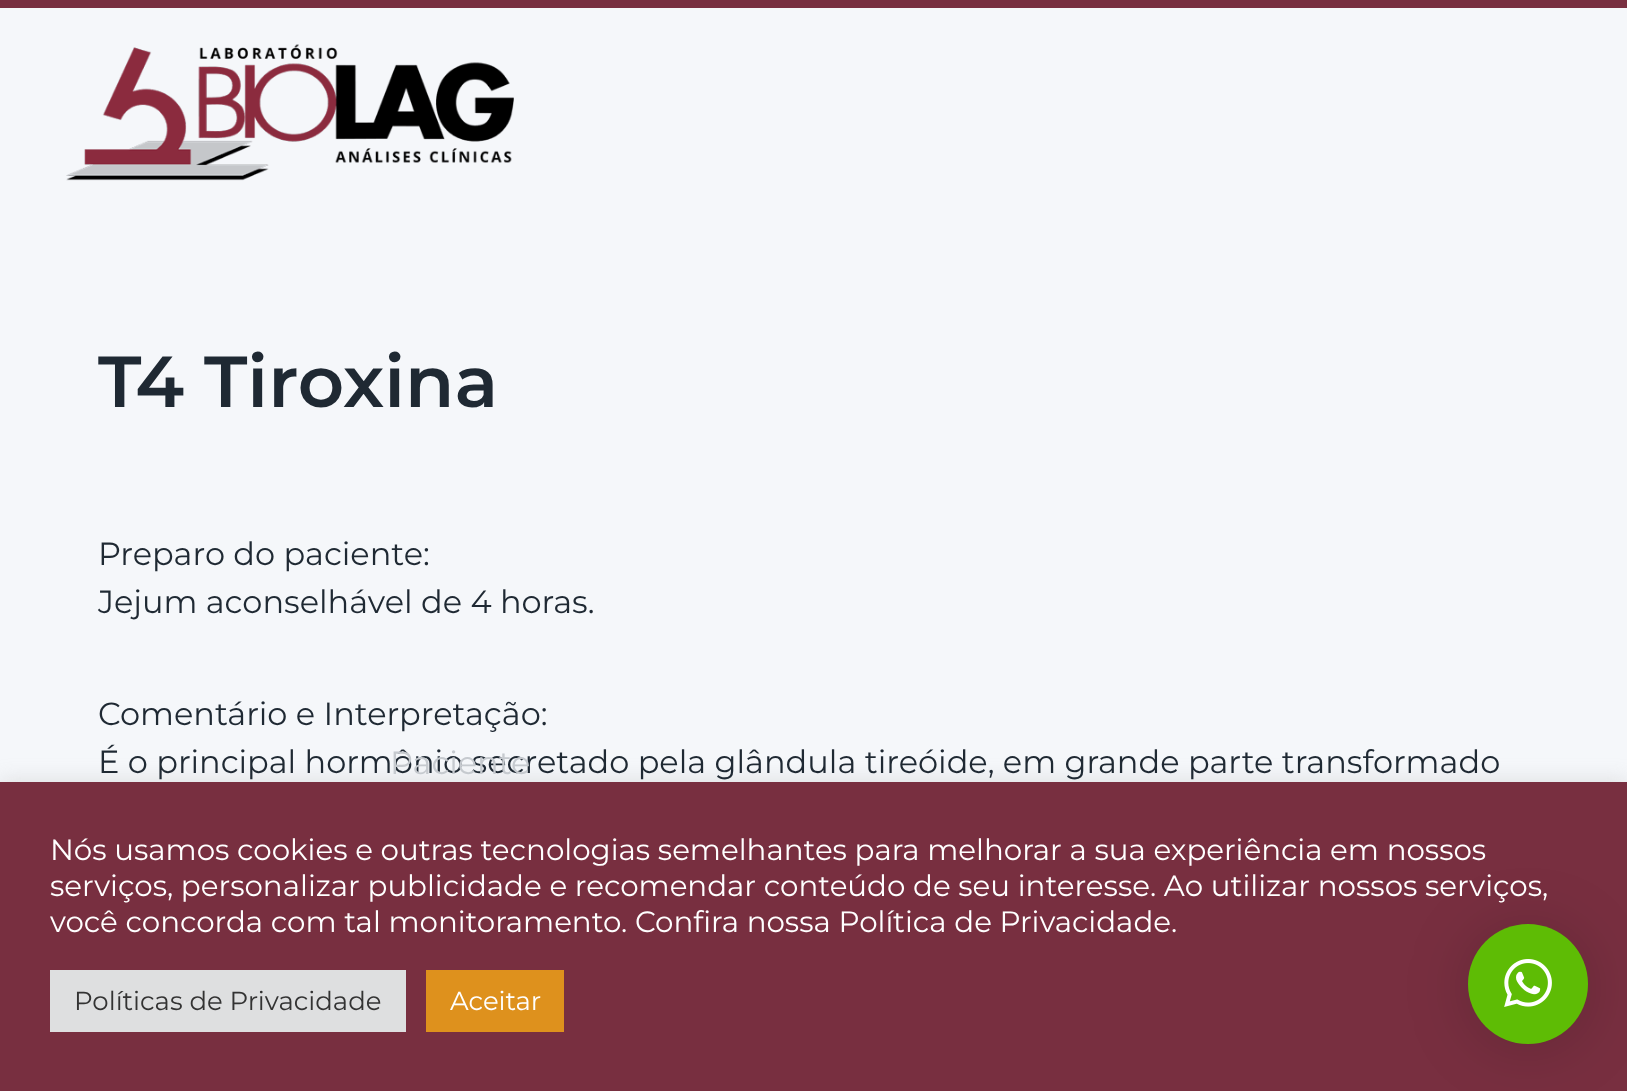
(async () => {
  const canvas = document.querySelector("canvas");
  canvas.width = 1627;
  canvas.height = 1091;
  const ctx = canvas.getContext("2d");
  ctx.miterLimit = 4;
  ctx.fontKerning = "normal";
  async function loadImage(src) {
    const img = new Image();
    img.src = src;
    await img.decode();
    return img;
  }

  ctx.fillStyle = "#f5f7fa";
  ctx.fillRect(0, 0, 1627, 1091);
  ctx.fillStyle = "#782f40";
  ctx.fillRect(0, 0, 1627, 8);
  ctx.drawImage(await loadImage("img/1.png"), 66, 44, 448, 137);
  ctx.fillStyle = "rgba(172, 171, 171, 0.3)";
  ctx.filter = "blur(10px)";
  ctx.beginPath();
  ctx.rect(0, 780, 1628, 310);
  ctx.fill();
  ctx.filter = "none";
  ctx.fillStyle = "#782f40";
  ctx.fillRect(0, 782, 1627, 309);
  ctx.fillStyle = "rgba(0, 0, 0, 0.16)";
  ctx.filter = "blur(32px)";
  ctx.beginPath();
  ctx.roundRect(1468, 928, 120, 120, 60);
  ctx.fill();
  ctx.filter = "none";
  ctx.fillStyle = "#5ebc05";
  ctx.beginPath();
  ctx.arc(1528, 984, 60, 0, Math.PI * 2);
  ctx.fill();
  ctx.drawImage(await loadImage("img/2.png"), 1504, 959, 48, 48);
  ctx.fillStyle = "#dedfe0";
  ctx.fillRect(50, 970, 356, 62);
  ctx.fillStyle = "#de911d";
  ctx.fillRect(426, 970, 138, 62);
  ctx.font = "600 72px Montserrat";
  ctx.fillStyle = "#1f2933";
  ctx.fillText("T4 Tiroxina", 98, 407);
  ctx.font = "32px Montserrat";
  for (const [text, x, y] of [
    ["Preparo do paciente:", 98, 565],
    ["Jejum aconselhável de 4 horas.", 98, 613],
    ["Comentário e Interpretação:", 98, 725],
    ["É o principal hormônio secretado pela glândula tireóide, em grande parte transformado", 98, 773],
  ]) {
    ctx.fillText(text, x, y);
  }
  ctx.fillStyle = "#c6cacf";
  ctx.fillText("Paciente", 390, 774);
  ctx.font = "29.33px Montserrat";
  ctx.fillStyle = "#ffffff";
  for (const [text, x, y] of [
    ["Nós usamos cookies e outras tecnologias semelhantes para melhorar a sua experiência em nossos", 50, 860],
    ["serviços, personalizar publicidade e recomendar conteúdo de seu interesse. Ao utilizar nossos serviços,", 50, 896],
    ["você concorda com tal monitoramento. Confira nossa Política de Privacidade.", 50, 932],
  ]) {
    ctx.fillText(text, x, y);
  }
  ctx.font = "26px Montserrat";
  ctx.fillStyle = "#333333";
  ctx.fillText("Políticas de Privacidade", 74, 1010);
  ctx.fillStyle = "#ffffff";
  ctx.fillText("Aceitar", 450, 1010);
})();
